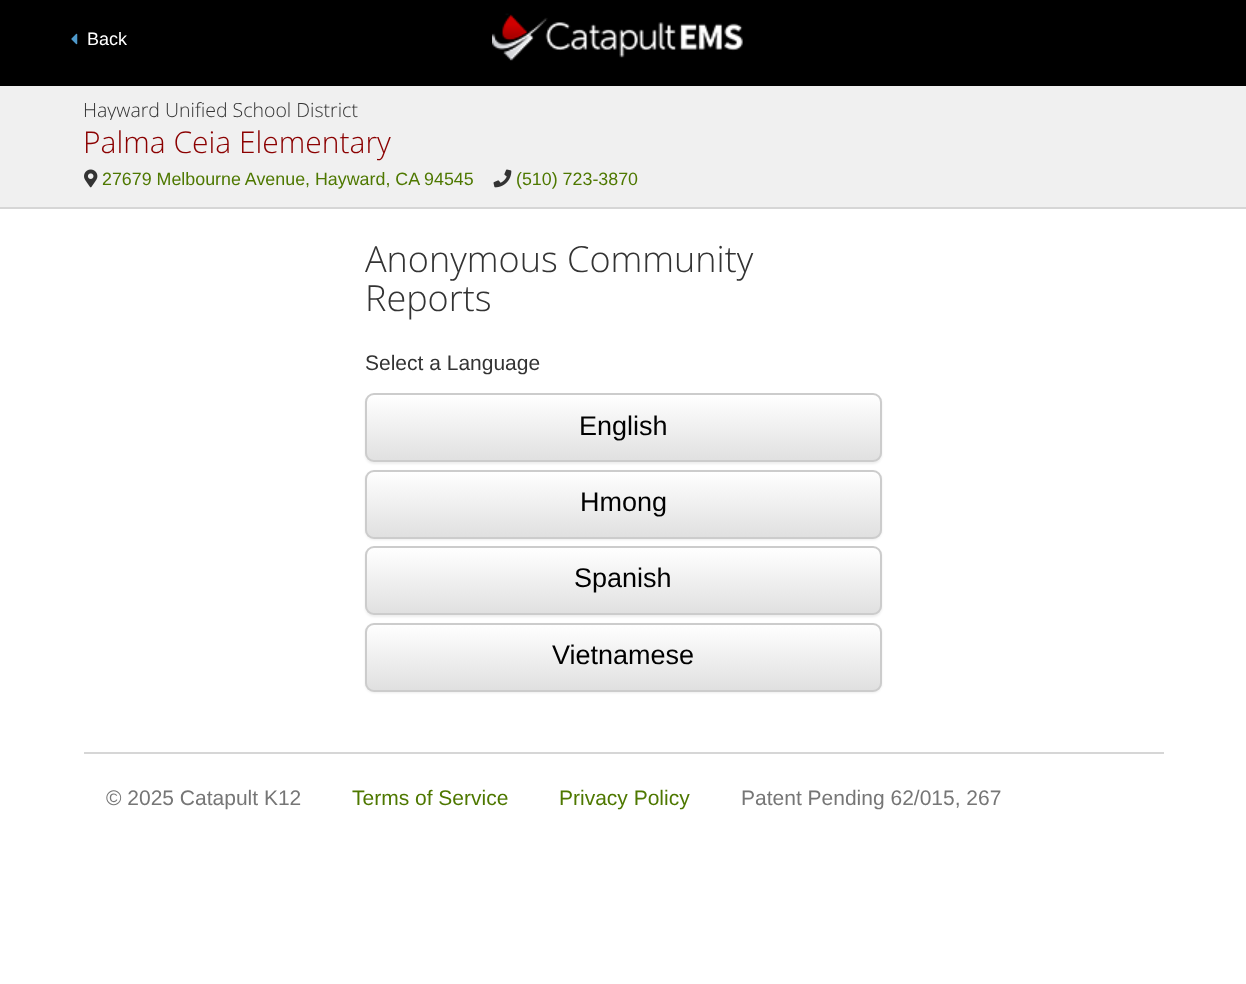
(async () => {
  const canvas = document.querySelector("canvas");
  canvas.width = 1246;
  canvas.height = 984;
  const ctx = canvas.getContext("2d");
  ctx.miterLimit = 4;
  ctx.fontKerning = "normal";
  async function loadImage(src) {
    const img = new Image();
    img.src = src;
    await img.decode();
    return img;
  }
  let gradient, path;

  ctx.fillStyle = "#ffffff";
  ctx.fillRect(0, 0, 1246, 984);
  ctx.fillStyle = "#000000";
  ctx.fillRect(0, 0, 1246, 86);
  ctx.drawImage(await loadImage("img/1.png"), 71, 33, 7, 12);
  ctx.drawImage(await loadImage("img/2.png"), 492, 13, 251, 48);
  ctx.fillStyle = "#f0f0f0";
  ctx.fillRect(0, 86, 1246, 121);
  ctx.fillStyle = "#d6d6d6";
  ctx.fillRect(0, 207, 1246, 2);
  ctx.drawImage(await loadImage("img/3.png"), 84, 169, 14, 19);
  ctx.drawImage(await loadImage("img/4.png"), 493, 169, 19, 19);
  ctx.fillStyle = "rgba(0, 0, 0, 0.07)";
  ctx.filter = "blur(1px)";
  ctx.beginPath();
  ctx.roundRect(365, 395, 517, 69, 9);
  ctx.fill();
  ctx.filter = "none";
  ctx.save();
  ctx.beginPath();
  ctx.roundRect(365, 393, 517, 69, 9);
  ctx.clip();
  gradient = ctx.createLinearGradient(623, 395, 623, 461);
  gradient.addColorStop(0, "#ffffff");
  gradient.addColorStop(1, "#e0e0e0");
  ctx.fillStyle = gradient;
  ctx.fillRect(365, 395, 517, 66);
  ctx.restore();
  ctx.fillStyle = "rgba(255, 255, 255, 0.15)";
  path = new Path2D("M374 396H873C877 396 880 399 880 404V454L879 458C880 457 881 455 881 453V403C881 399 877 395 873 395H374C370 395 366 399 366 403V404C366 399 369 396 374 396Z");
  ctx.fill(path);
  ctx.beginPath();
  ctx.roundRect(366, 394, 515, 67, 8);
  ctx.strokeStyle = "#cccccc";
  ctx.lineWidth = 2;
  ctx.stroke();
  ctx.fillStyle = "rgba(0, 0, 0, 0.07)";
  ctx.filter = "blur(1px)";
  ctx.beginPath();
  ctx.roundRect(365, 471, 517, 69, 9);
  ctx.fill();
  ctx.filter = "none";
  ctx.save();
  ctx.beginPath();
  ctx.roundRect(365, 470, 517, 69, 9);
  ctx.clip();
  gradient = ctx.createLinearGradient(623, 471, 623, 537);
  gradient.addColorStop(0, "#ffffff");
  gradient.addColorStop(1, "#e0e0e0");
  ctx.fillStyle = gradient;
  ctx.fillRect(365, 471, 517, 66);
  ctx.restore();
  ctx.fillStyle = "rgba(255, 255, 255, 0.15)";
  path = new Path2D("M374 472H873C877 472 880 476 880 480V531V534C880 532 881 531 881 529V479C881 475 877 471 873 471H374C370 471 366 475 366 479V480C366 476 369 472 374 472Z");
  ctx.fill(path);
  ctx.beginPath();
  ctx.roundRect(366, 471, 515, 67, 8);
  ctx.stroke();
  ctx.fillStyle = "rgba(0, 0, 0, 0.07)";
  ctx.filter = "blur(1px)";
  ctx.beginPath();
  ctx.roundRect(365, 548, 517, 69, 9);
  ctx.fill();
  ctx.filter = "none";
  ctx.save();
  ctx.beginPath();
  ctx.roundRect(365, 546, 517, 69, 9);
  ctx.clip();
  gradient = ctx.createLinearGradient(623, 548, 623, 614);
  gradient.addColorStop(0, "#ffffff");
  gradient.addColorStop(1, "#e0e0e0");
  ctx.fillStyle = gradient;
  ctx.fillRect(365, 548, 517, 66);
  ctx.restore();
  ctx.fillStyle = "rgba(255, 255, 255, 0.15)";
  path = new Path2D("M374 549H873C877 549 880 552 880 556V608V611C880 609 881 608 881 606V556C881 552 877 548 873 548H374C370 548 366 552 366 556C366 552 369 549 374 549Z");
  ctx.fill(path);
  ctx.beginPath();
  ctx.roundRect(366, 547, 515, 67, 8);
  ctx.stroke();
  ctx.fillStyle = "rgba(0, 0, 0, 0.07)";
  ctx.filter = "blur(1px)";
  ctx.beginPath();
  ctx.roundRect(365, 624, 517, 69, 9);
  ctx.fill();
  ctx.filter = "none";
  ctx.save();
  ctx.beginPath();
  ctx.roundRect(365, 623, 517, 69, 9);
  ctx.clip();
  gradient = ctx.createLinearGradient(623, 624, 623, 690);
  gradient.addColorStop(0, "#ffffff");
  gradient.addColorStop(1, "#e0e0e0");
  ctx.fillStyle = gradient;
  ctx.fillRect(365, 624, 517, 66);
  ctx.restore();
  ctx.fillStyle = "rgba(255, 255, 255, 0.15)";
  path = new Path2D("M374 626H873C877 626 880 629 880 633V684V686C880 685 881 684 881 682V632C881 628 877 624 873 624H374C370 624 366 628 366 632V633C366 629 369 626 374 626Z");
  ctx.fill(path);
  ctx.beginPath();
  ctx.roundRect(366, 624, 515, 67, 8);
  ctx.stroke();
  ctx.fillStyle = "#d6d6d6";
  ctx.fillRect(84, 752, 1080, 2);
  ctx.font = "18px Liberation Sans";
  ctx.fillStyle = "#ffffff";
  ctx.fillText("Back", 87, 45);
  ctx.save();
  ctx.beginPath();
  ctx.rect(84, 101, 848, 19);
  ctx.clip();
  ctx.font = "300 19.5px Open Sans";
  ctx.fillStyle = "#333333";
  ctx.fillText("Hayward Unified School District", 83, 117);
  ctx.restore();
  ctx.font = "300 30px Open Sans";
  ctx.fillStyle = "#8b0000";
  ctx.fillText("Palma Ceia Elementary", 83, 153);
  ctx.font = "17.85px Liberation Sans";
  ctx.fillStyle = "#4e7800";
  ctx.fillText("27679 Melbourne Avenue, Hayward, CA 94545", 102, 185);
  ctx.fillText("(510) 723-3870", 516, 185);
  ctx.font = "300 36px Open Sans";
  ctx.fillStyle = "#333333";
  ctx.fillText("Anonymous Community", 365, 272);
  ctx.fillText("Reports", 365, 311);
  ctx.font = "21px Liberation Sans";
  ctx.fillText("Select a Language", 365, 370);
  ctx.font = "27px Liberation Sans";
  ctx.fillStyle = "#000000";
  for (const [text, x, y] of [
    ["English", 579, 435],
    ["Hmong", 580, 511],
    ["Spanish", 574, 587],
    ["Vietnamese", 552, 664],
  ]) {
    ctx.fillText(text, x, y);
  }
  ctx.font = "21px Liberation Sans";
  ctx.fillStyle = "#767676";
  ctx.fillText("© 2025 Catapult K12", 106, 805);
  ctx.fillStyle = "#4e7800";
  ctx.fillText("Terms of Service", 352, 805);
  ctx.fillText("Privacy Policy", 559, 805);
  ctx.fillStyle = "#767676";
  ctx.fillText("Patent Pending 62/015, 267", 741, 805);
})();
